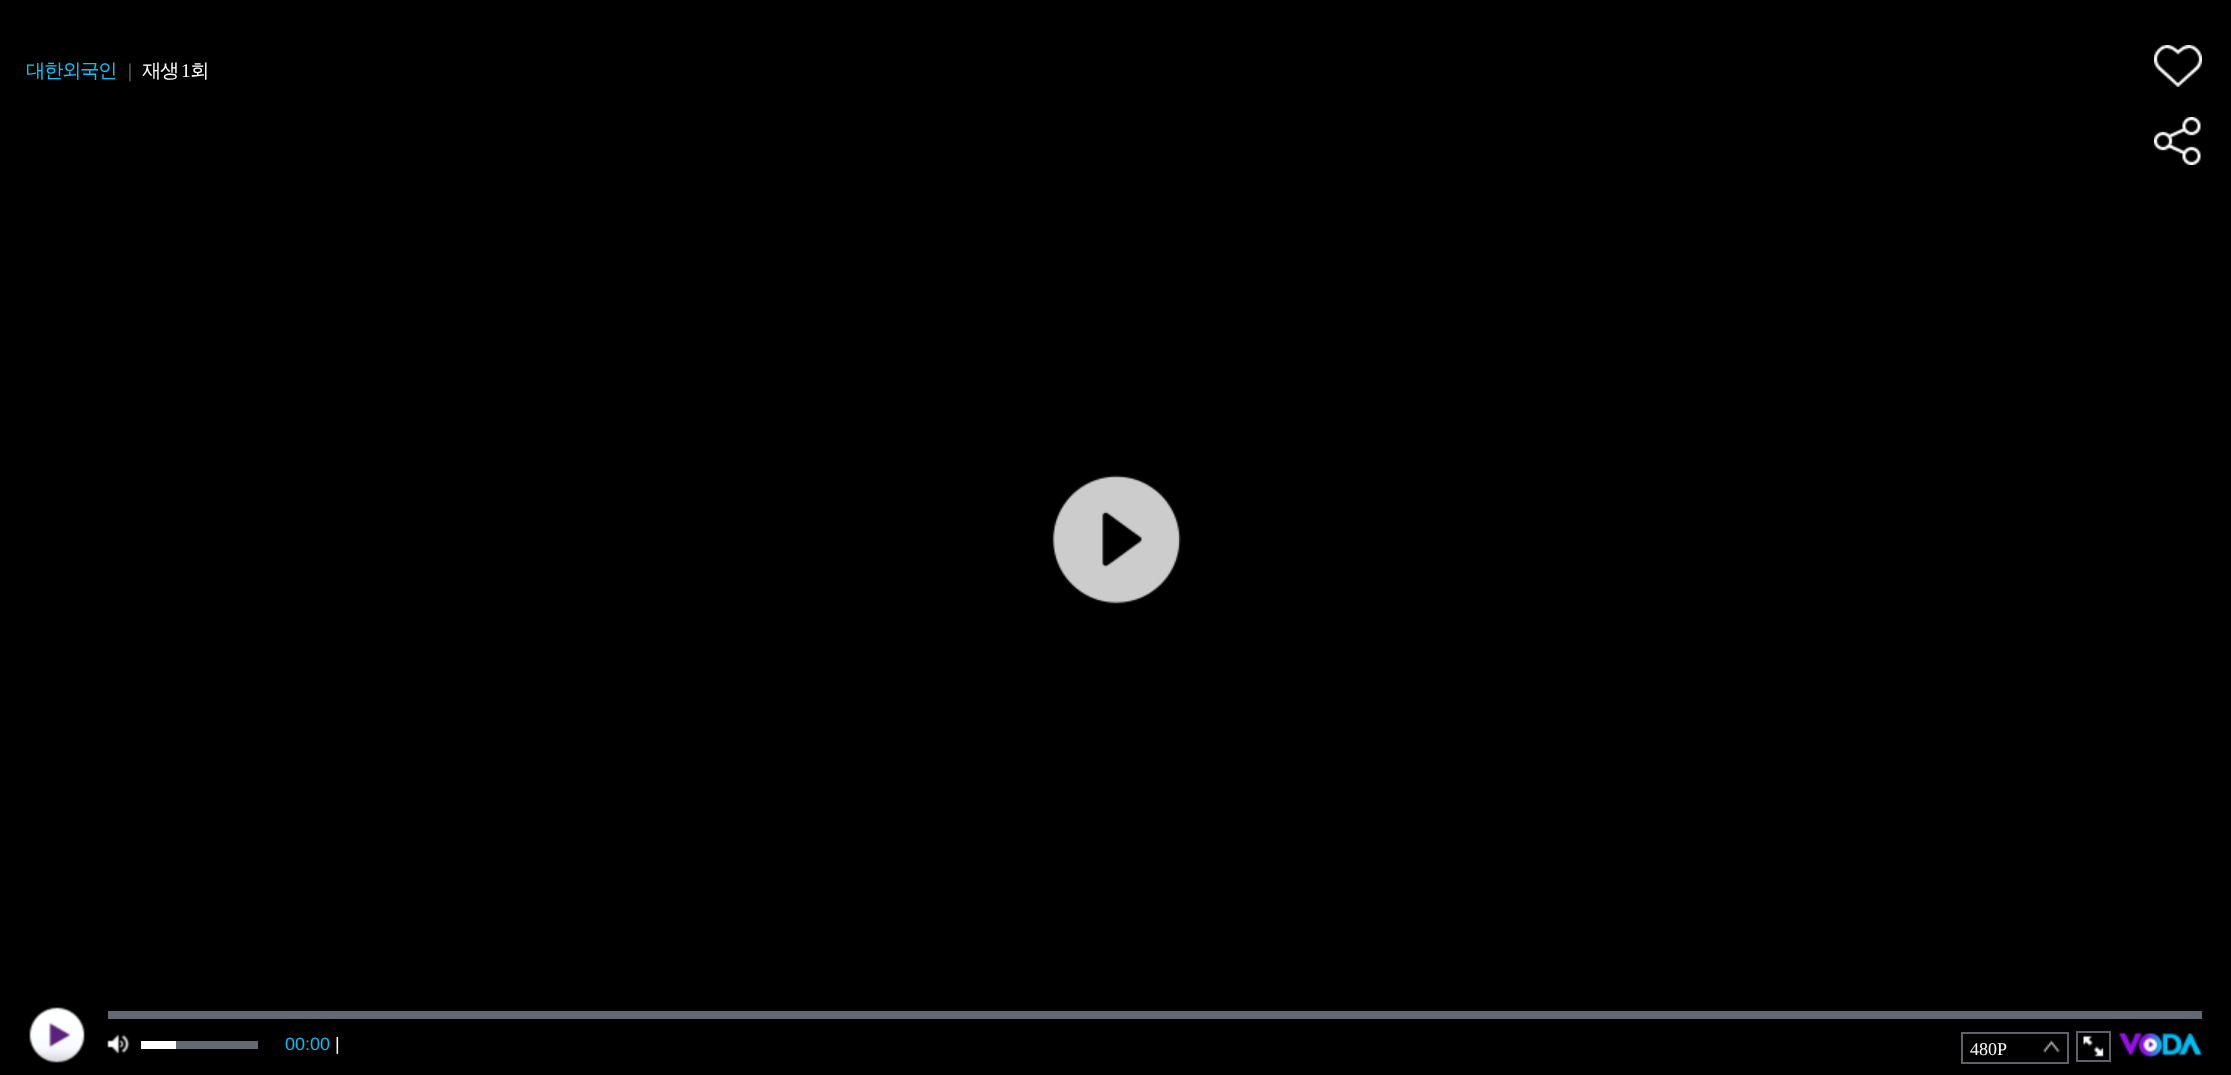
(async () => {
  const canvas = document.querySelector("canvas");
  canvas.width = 2231;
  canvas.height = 1075;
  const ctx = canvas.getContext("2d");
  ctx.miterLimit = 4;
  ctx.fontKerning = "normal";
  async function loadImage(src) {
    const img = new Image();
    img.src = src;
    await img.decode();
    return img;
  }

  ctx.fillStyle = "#000000";
  ctx.fillRect(0, 0, 2231, 1075);
  ctx.drawImage(await loadImage("img/1.png"), 2154, 45, 48, 42);
  ctx.drawImage(await loadImage("img/2.png"), 2154, 117, 47, 48);
  ctx.drawImage(await loadImage("img/3.png"), 1052, 475, 129, 129);
  ctx.fillStyle = "#636971";
  ctx.fillRect(108, 1011, 2094, 8);
  ctx.drawImage(await loadImage("img/4.png"), 29, 1007, 56, 56);
  ctx.drawImage(await loadImage("img/5.png"), 107, 1034, 23, 20);
  ctx.fillStyle = "#636972";
  ctx.fillRect(176, 1041, 82, 8);
  ctx.fillStyle = "#ffffff";
  ctx.fillRect(141, 1041, 35, 8);
  ctx.strokeStyle = "#5d6168";
  ctx.lineWidth = 2;
  ctx.strokeRect(1962, 1033, 106, 30);
  ctx.drawImage(await loadImage("img/6.png"), 2043, 1040, 17, 13);
  ctx.drawImage(await loadImage("img/7.png"), 2083, 1035, 21, 22);
  ctx.strokeRect(2077, 1032, 33, 29);
  ctx.drawImage(await loadImage("img/8.png"), 2118, 1033, 84, 25);
  ctx.letterSpacing = "-1.5px";
  ctx.font = "500 19.5px WenQuanYi Zen Hei";
  ctx.fillStyle = "#00c8ff";
  ctx.fillText("대한외국인", 26, 77);
  ctx.font = "19.5px Liberation Serif";
  ctx.fillStyle = "#888888";
  ctx.fillText("|", 128, 77);
  ctx.font = "500 19.5px WenQuanYi Zen Hei";
  ctx.fillStyle = "#ffffff";
  ctx.fillText("재생", 142, 77);
  ctx.font = "19.5px Liberation Serif";
  ctx.fillText("1", 181, 77);
  ctx.font = "500 19.5px WenQuanYi Zen Hei";
  ctx.fillText("회", 190, 77);
  ctx.letterSpacing = "0px";
  ctx.font = "18px Liberation Sans";
  ctx.fillStyle = "#02c1f5";
  ctx.fillText("00:00", 285, 1050);
  ctx.fillStyle = "#ffffff";
  ctx.fillText("|", 335, 1050);
  ctx.font = "18px Liberation Serif";
  ctx.fillText("480P", 1970, 1055);
})();
